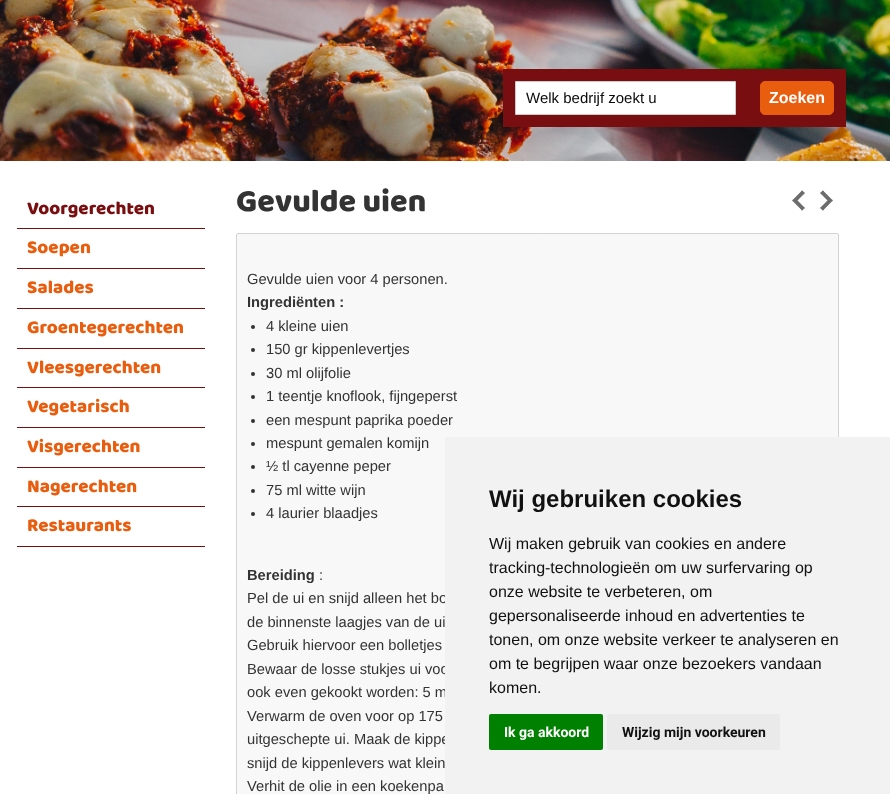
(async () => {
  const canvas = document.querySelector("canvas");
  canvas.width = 890;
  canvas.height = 794;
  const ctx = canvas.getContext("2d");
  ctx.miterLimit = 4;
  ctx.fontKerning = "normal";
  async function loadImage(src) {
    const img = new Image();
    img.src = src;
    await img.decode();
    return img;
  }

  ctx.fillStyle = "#ffffff";
  ctx.fillRect(0, 0, 890, 794);
  ctx.drawImage(await loadImage("img/1.png"), 0, 0, 890, 161);
  for (const [x, y, w, h, color] of [
    [17, 228, 188, 1, "#790e11"],
    [17, 268, 188, 1, "#790e11"],
    [17, 308, 188, 1, "#790e11"],
    [17, 348, 188, 1, "#790e11"],
    [17, 387, 188, 1, "#790e11"],
    [17, 427, 188, 1, "#790e11"],
    [17, 467, 188, 1, "#790e11"],
    [17, 506, 188, 1, "#790e11"],
    [17, 546, 188, 1, "#790e11"],
    [503, 69, 343, 58, "#790e11"],
  ]) {
    ctx.fillStyle = color;
    ctx.fillRect(x, y, w, h);
  }
  ctx.fillStyle = "#ffffff";
  ctx.beginPath();
  ctx.rect(515.5, 81.5, 220, 33);
  ctx.fill();
  ctx.strokeStyle = "#cacaca";
  ctx.stroke();
  ctx.fillStyle = "#e95d0f";
  ctx.beginPath();
  ctx.roundRect(760.5, 81.5, 73, 33, 4.5);
  ctx.fill();
  ctx.strokeStyle = "#e95d0f";
  ctx.stroke();
  ctx.drawImage(await loadImage("img/2.png"), 792, 190, 13, 21);
  ctx.drawImage(await loadImage("img/3.png"), 820, 190, 13, 21);
  ctx.fillStyle = "#f8f8f8";
  ctx.beginPath();
  ctx.roundRect(236.5, 233.5, 602, 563, 1.5);
  ctx.fill();
  ctx.strokeStyle = "#d4d2d2";
  ctx.stroke();
  ctx.fillStyle = "#333333";
  ctx.beginPath();
  ctx.arc(253, 327, 2, 0, Math.PI * 2);
  ctx.fill();
  ctx.beginPath();
  ctx.arc(253, 350, 2, 0, Math.PI * 2);
  ctx.fill();
  ctx.beginPath();
  ctx.arc(253, 374, 2, 0, Math.PI * 2);
  ctx.fill();
  ctx.beginPath();
  ctx.arc(253, 397, 2, 0, Math.PI * 2);
  ctx.fill();
  ctx.beginPath();
  ctx.arc(253, 421, 2, 0, Math.PI * 2);
  ctx.fill();
  ctx.beginPath();
  ctx.arc(253, 444, 2, 0, Math.PI * 2);
  ctx.fill();
  ctx.beginPath();
  ctx.arc(253, 467, 2, 0, Math.PI * 2);
  ctx.fill();
  ctx.beginPath();
  ctx.arc(253, 491, 2, 0, Math.PI * 2);
  ctx.fill();
  ctx.beginPath();
  ctx.arc(253, 514, 2, 0, Math.PI * 2);
  ctx.fill();
  ctx.font = "18.75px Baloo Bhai";
  ctx.fillStyle = "#790e11";
  ctx.fillText("Voorgerechten", 27, 214);
  ctx.fillStyle = "#e95d0f";
  for (const [text, x, y] of [
    ["Soepen", 27, 253],
    ["Salades", 27, 293],
    ["Groentegerechten", 27, 333],
    ["Vleesgerechten", 27, 373],
    ["Vegetarisch", 27, 412],
    ["Visgerechten", 27, 452],
    ["Nagerechten", 27, 492],
    ["Restaurants", 27, 531],
  ]) {
    ctx.fillText(text, x, y);
  }
  ctx.font = "15px Liberation Sans";
  ctx.fillStyle = "#0a0a0a";
  ctx.fillText("Welk bedrijf zoekt u", 526, 103);
  ctx.font = "bold 16px Liberation Sans";
  ctx.fillStyle = "#fefefe";
  ctx.fillText("Zoeken", 769, 103);
  ctx.font = "32px Baloo Bhai";
  ctx.fillStyle = "#333333";
  ctx.fillText("Gevulde uien", 236, 211);
  ctx.font = "14.7px Liberation Sans";
  ctx.fillText("Gevulde uien voor 4 personen.", 247, 284);
  ctx.font = "bold 14.7px Liberation Sans";
  ctx.fillText("Ingrediënten :", 247, 307);
  ctx.font = "14.7px Liberation Sans";
  for (const [text, x, y] of [
    ["4 kleine uien", 266, 331],
    ["150 gr kippenlevertjes", 266, 354],
    ["30 ml olijfolie", 266, 378],
    ["1 teentje knoflook, fijngeperst", 266, 401],
    ["een mespunt paprika poeder", 266, 425],
    ["mespunt gemalen komijn", 266, 448],
    ["½ tl cayenne peper", 266, 471],
    ["75 ml witte wijn", 266, 495],
    ["4 laurier blaadjes", 266, 518],
  ]) {
    ctx.fillText(text, x, y);
  }
  ctx.font = "bold 14.7px Liberation Sans";
  ctx.fillText("Bereiding", 247, 580);
  ctx.font = "14.7px Liberation Sans";
  for (const [text, x, y] of [
    [":", 319, 580],
    ["Pel de ui en snijd alleen het bo", 247, 603],
    ["de binnenste laagjes van de ui", 247, 627],
    ["Gebruik hiervoor een bolletjes", 247, 650],
    ["Bewaar de losse stukjes ui voo", 247, 674],
    ["ook even gekookt worden: 5 m", 247, 697],
    ["Verwarm de oven voor op 175", 247, 721],
    ["uitgeschepte ui. Maak de kippe", 247, 744],
    ["snijd de kippenlevers wat klein", 247, 768],
    ["Verhit de olie in een koekenpa", 247, 791],
  ]) {
    ctx.fillText(text, x, y);
  }
  ctx.fillStyle = "#f2f2f2";
  ctx.fillRect(445, 437, 445, 357);
  ctx.font = "bold 24px Liberation Sans";
  ctx.fillStyle = "#111111";
  ctx.fillText("Wij gebruiken cookies", 489, 507);
  ctx.font = "16px Liberation Sans";
  for (const [text, x, y] of [
    ["Wij maken gebruik van cookies en andere", 489, 549],
    ["tracking-technologieën om uw surfervaring op", 489, 573],
    ["onze website te verbeteren, om", 489, 597],
    ["gepersonaliseerde inhoud en advertenties te", 489, 621],
    ["tonen, om onze website verkeer te analyseren en", 489, 645],
    ["om te begrijpen waar onze bezoekers vandaan", 489, 669],
    ["komen.", 489, 693],
  ]) {
    ctx.fillText(text, x, y);
  }
  ctx.fillStyle = "#008000";
  ctx.beginPath();
  ctx.roundRect(489, 714, 114, 36, 2);
  ctx.fill();
  ctx.font = "bold 14px Roboto";
  ctx.fillStyle = "#fefefe";
  ctx.fillText("Ik ga akkoord", 504, 737);
  ctx.fillStyle = "#eaeaea";
  ctx.beginPath();
  ctx.roundRect(607, 714, 173, 36, 2);
  ctx.fill();
  ctx.fillStyle = "#111111";
  ctx.fillText("Wijzig mijn voorkeuren", 622, 737);
})();
